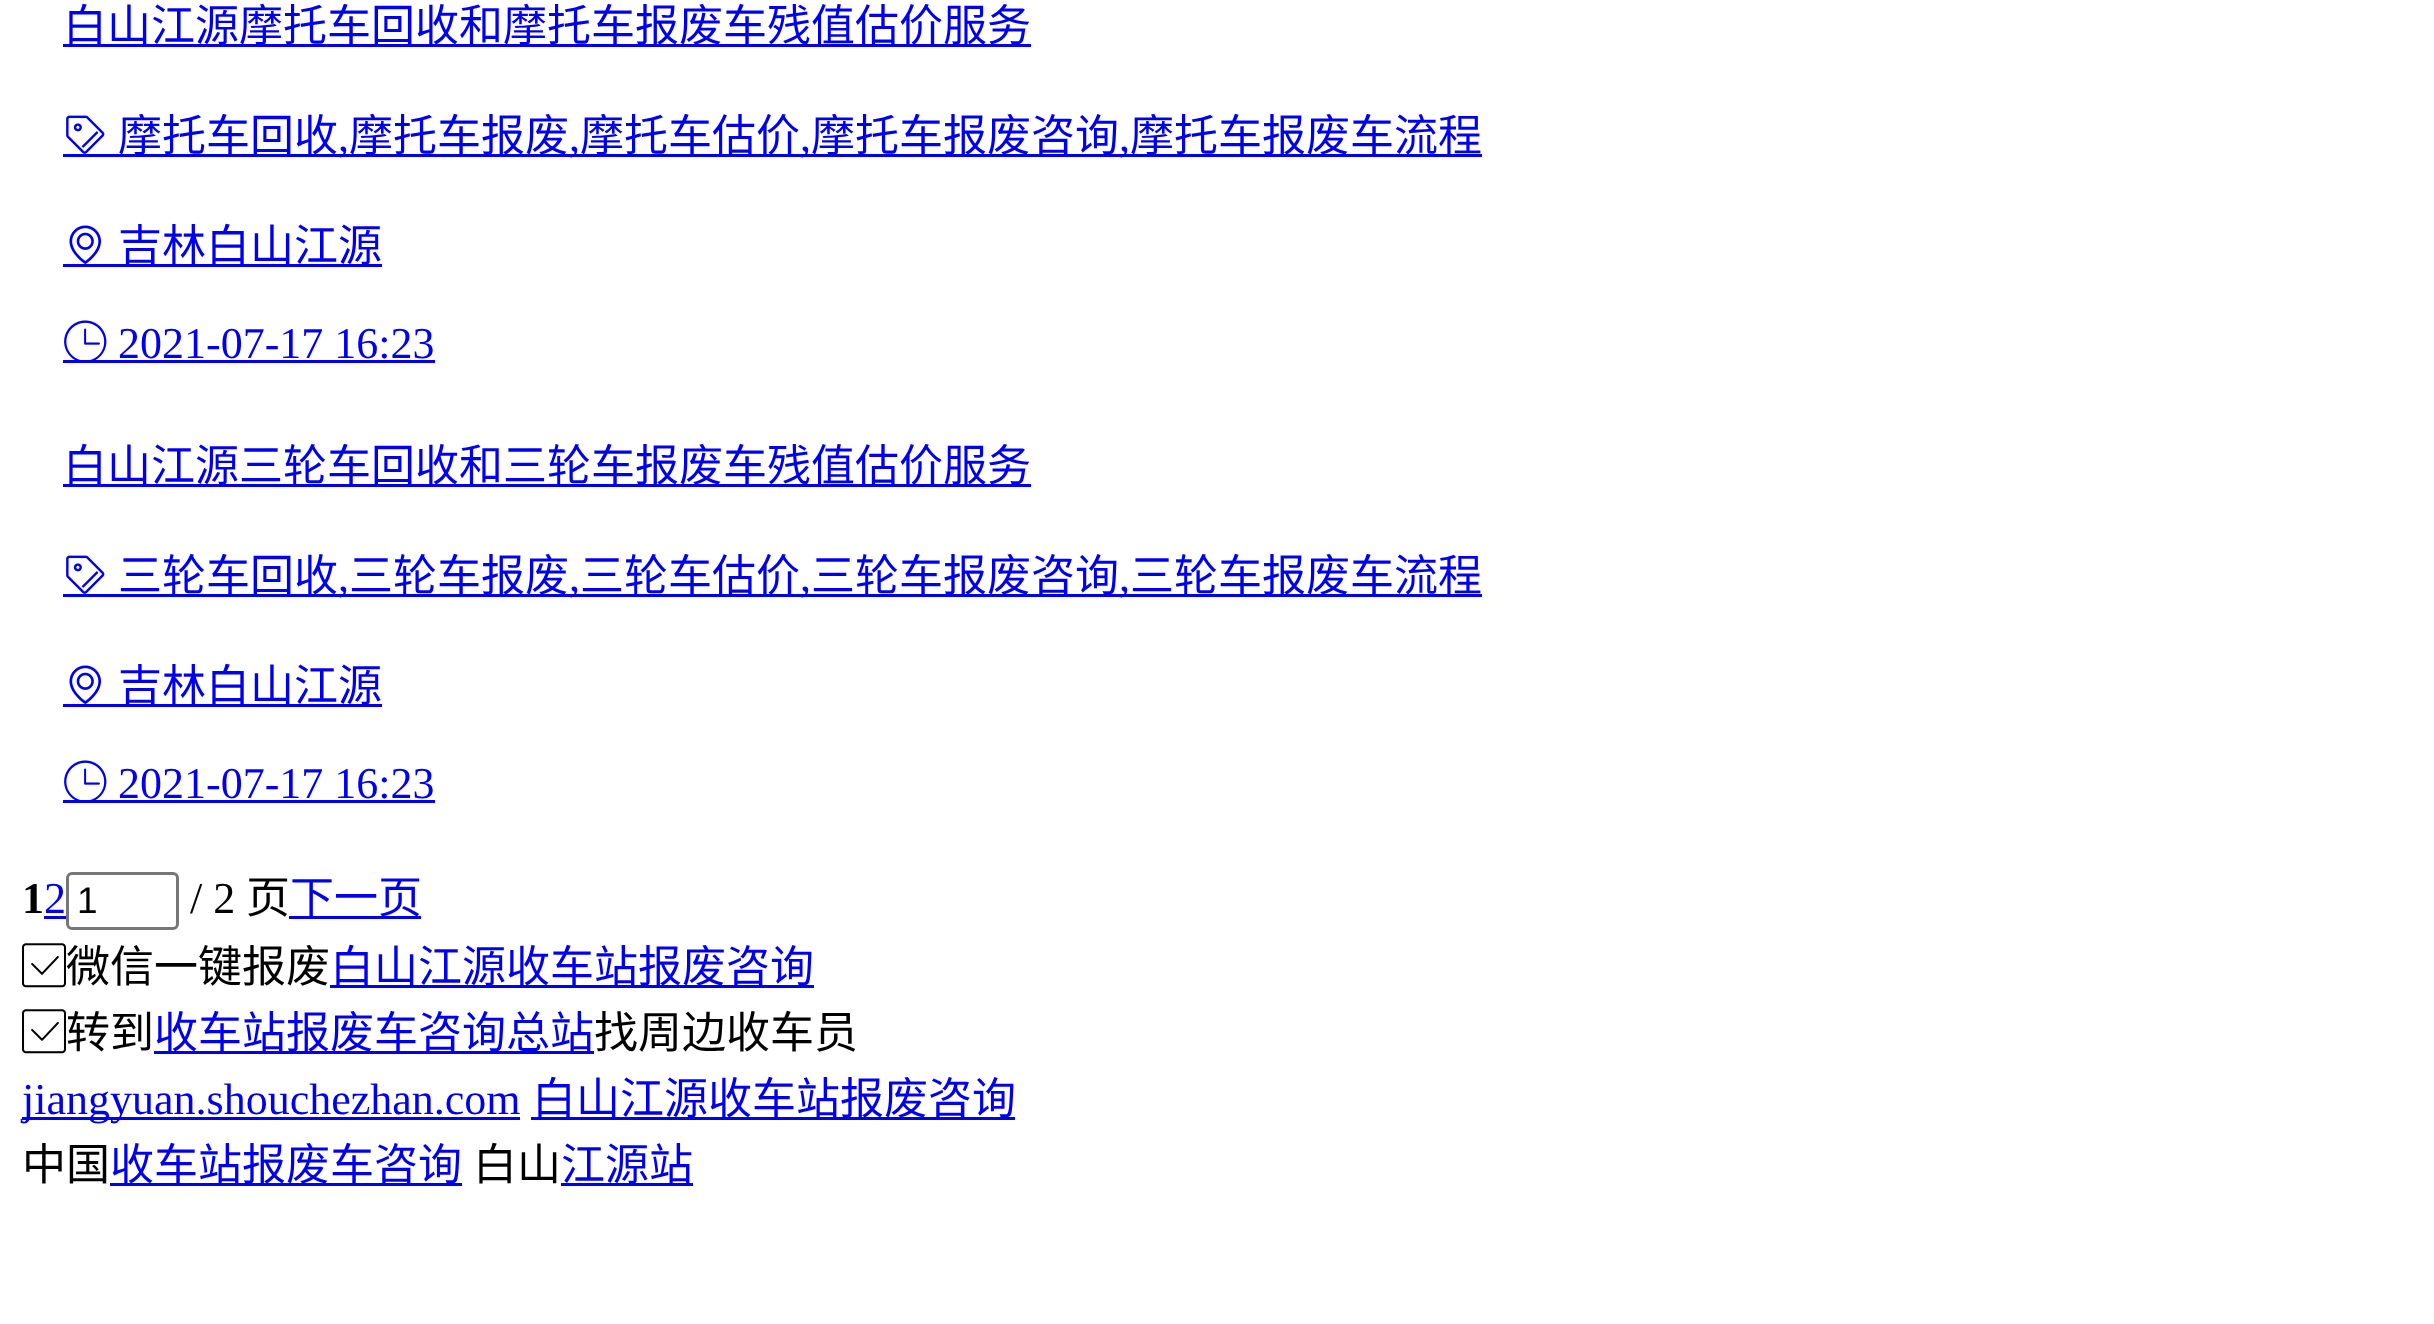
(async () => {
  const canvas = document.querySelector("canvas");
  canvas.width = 2434;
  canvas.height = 1324;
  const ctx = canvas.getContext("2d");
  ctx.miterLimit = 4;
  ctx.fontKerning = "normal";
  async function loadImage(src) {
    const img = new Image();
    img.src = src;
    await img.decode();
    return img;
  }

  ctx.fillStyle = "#ffffff";
  ctx.fillRect(0, 0, 2434, 1324);
  ctx.fillStyle = "#0000ee";
  ctx.fillRect(63, 44, 968, 3);
  ctx.drawImage(await loadImage("img/1.png"), 66, 115, 39, 39);
  ctx.fillRect(63, 154, 1419, 3);
  ctx.drawImage(await loadImage("img/2.png"), 69, 225, 32, 39);
  ctx.fillRect(63, 264, 319, 3);
  ctx.drawImage(await loadImage("img/3.png"), 64, 320, 43, 40);
  ctx.fillRect(63, 360, 372, 3);
  ctx.fillRect(63, 484, 968, 3);
  ctx.drawImage(await loadImage("img/1.png"), 66, 555, 39, 39);
  ctx.fillRect(63, 594, 1419, 3);
  ctx.drawImage(await loadImage("img/2.png"), 69, 665, 32, 39);
  ctx.fillRect(63, 704, 319, 3);
  ctx.drawImage(await loadImage("img/3.png"), 64, 760, 43, 40);
  ctx.fillRect(63, 800, 372, 3);
  ctx.fillRect(44, 916, 22, 3);
  ctx.beginPath();
  ctx.roundRect(67.5, 873.5, 110, 55, 4.5);
  ctx.strokeStyle = "#767676";
  ctx.lineWidth = 3;
  ctx.stroke();
  ctx.fillRect(289, 916, 132, 3);
  ctx.drawImage(await loadImage("img/4.png"), 22, 943, 44, 45);
  ctx.fillRect(330, 985, 484, 3);
  ctx.drawImage(await loadImage("img/4.png"), 22, 1009, 44, 45);
  for (const [x, y, w, h, color] of [
    [154, 1051, 440, 3, "#0000ee"],
    [22, 1117, 498, 3, "#0000ee"],
    [531, 1117, 484, 3, "#0000ee"],
    [110, 1183, 352, 3, "#0000ee"],
    [561, 1183, 132, 3, "#0000ee"],
  ]) {
    ctx.fillStyle = color;
    ctx.fillRect(x, y, w, h);
  }
  ctx.font = "44px Noto Sans CJK SC";
  ctx.fillText("白山江源摩托车回收和摩托车报废车残值估价服务", 63, 41);
  ctx.fillText("摩托车回收", 118, 151);
  ctx.font = "44px Liberation Serif";
  ctx.fillText(",", 338, 151);
  ctx.font = "44px Noto Sans CJK SC";
  ctx.fillText("摩托车报废", 349, 151);
  ctx.font = "44px Liberation Serif";
  ctx.fillText(",", 569, 151);
  ctx.font = "44px Noto Sans CJK SC";
  ctx.fillText("摩托车估价", 580, 151);
  ctx.font = "44px Liberation Serif";
  ctx.fillText(",", 800, 151);
  ctx.font = "44px Noto Sans CJK SC";
  ctx.fillText("摩托车报废咨询", 811, 151);
  ctx.font = "44px Liberation Serif";
  ctx.fillText(",", 1119, 151);
  ctx.font = "44px Noto Sans CJK SC";
  ctx.fillText("摩托车报废车流程", 1130, 151);
  ctx.fillText("吉林白山江源", 118, 261);
  ctx.font = "44px Liberation Serif";
  ctx.fillText("2021-07-17 16:23", 118, 358);
  ctx.font = "44px Noto Sans CJK SC";
  ctx.fillText("白山江源三轮车回收和三轮车报废车残值估价服务", 63, 481);
  ctx.fillText("三轮车回收", 118, 591);
  ctx.font = "44px Liberation Serif";
  ctx.fillText(",", 338, 591);
  ctx.font = "44px Noto Sans CJK SC";
  ctx.fillText("三轮车报废", 349, 591);
  ctx.font = "44px Liberation Serif";
  ctx.fillText(",", 569, 591);
  ctx.font = "44px Noto Sans CJK SC";
  ctx.fillText("三轮车估价", 580, 591);
  ctx.font = "44px Liberation Serif";
  ctx.fillText(",", 800, 591);
  ctx.font = "44px Noto Sans CJK SC";
  ctx.fillText("三轮车报废咨询", 811, 591);
  ctx.font = "44px Liberation Serif";
  ctx.fillText(",", 1119, 591);
  ctx.font = "44px Noto Sans CJK SC";
  ctx.fillText("三轮车报废车流程", 1130, 591);
  ctx.fillText("吉林白山江源", 118, 701);
  ctx.font = "44px Liberation Serif";
  ctx.fillText("2021-07-17 16:23", 118, 798);
  ctx.font = "bold 44px Liberation Serif";
  ctx.fillStyle = "#000000";
  ctx.fillText("1", 22, 913);
  ctx.font = "44px Liberation Serif";
  ctx.fillStyle = "#0000ee";
  ctx.fillText("2", 44, 913);
  ctx.font = "37px Liberation Sans";
  ctx.fillStyle = "#000000";
  ctx.fillText("1", 77, 913);
  ctx.font = "44px Liberation Serif";
  ctx.fillText("/ 2", 190, 913);
  ctx.font = "44px Noto Sans CJK SC";
  ctx.fillText("页", 246, 913);
  ctx.fillStyle = "#0000ee";
  ctx.fillText("下一页", 290, 913);
  ctx.fillStyle = "#000000";
  ctx.fillText("微信一键报废", 66, 982);
  ctx.fillStyle = "#0000ee";
  ctx.fillText("白山江源收车站报废咨询", 330, 982);
  ctx.fillStyle = "#000000";
  ctx.fillText("转到", 66, 1048);
  ctx.fillStyle = "#0000ee";
  ctx.fillText("收车站报废车咨询总站", 154, 1048);
  ctx.fillStyle = "#000000";
  ctx.fillText("找周边收车员", 594, 1048);
  ctx.font = "44px Liberation Serif";
  ctx.fillStyle = "#0000ee";
  ctx.fillText("jiangyuan.shouchezhan.com", 22, 1114);
  ctx.font = "44px Noto Sans CJK SC";
  ctx.fillText("白山江源收车站报废咨询", 532, 1114);
  ctx.fillStyle = "#000000";
  ctx.fillText("中国", 22, 1180);
  ctx.fillStyle = "#0000ee";
  ctx.fillText("收车站报废车咨询", 110, 1180);
  ctx.fillStyle = "#000000";
  ctx.fillText("白山", 473, 1180);
  ctx.fillStyle = "#0000ee";
  ctx.fillText("江源站", 561, 1180);
})();
